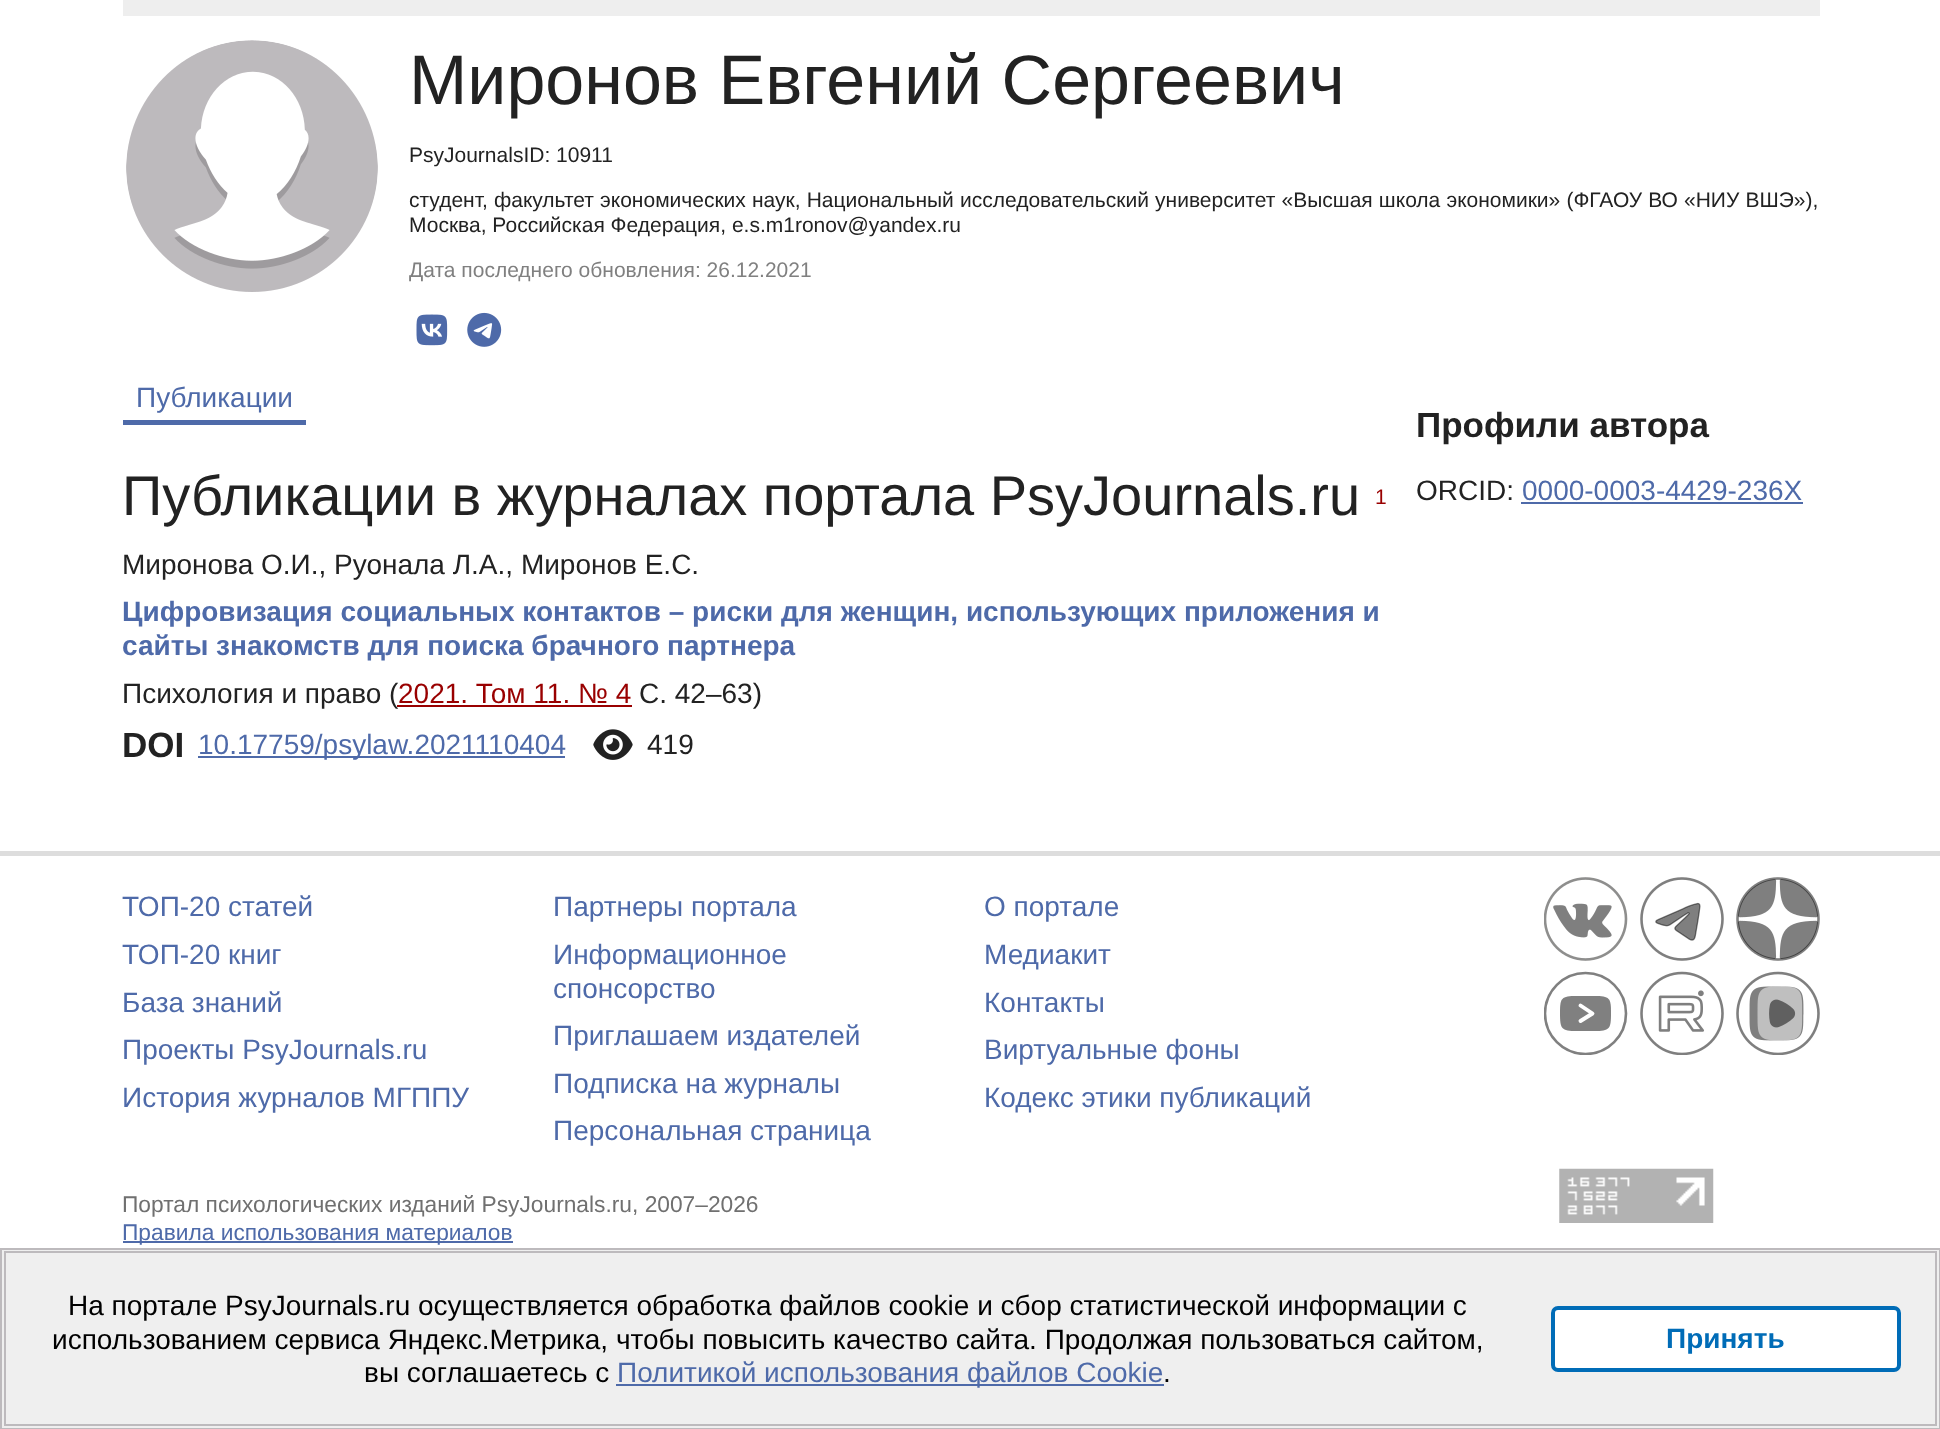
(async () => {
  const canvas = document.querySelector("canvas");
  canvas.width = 1940;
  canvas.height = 1429;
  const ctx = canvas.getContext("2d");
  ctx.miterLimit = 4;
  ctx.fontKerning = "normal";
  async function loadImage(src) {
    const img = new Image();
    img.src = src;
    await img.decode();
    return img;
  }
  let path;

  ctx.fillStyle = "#ffffff";
  ctx.fillRect(0, 0, 1940, 1429);
  ctx.fillStyle = "#eeeeee";
  ctx.fillRect(123, 0, 1697, 16);
  ctx.drawImage(await loadImage("img/1.png"), 126, 40, 252, 252);
  ctx.drawImage(await loadImage("img/2.png"), 416, 314, 32, 32);
  ctx.drawImage(await loadImage("img/3.png"), 467, 312, 35, 35);
  ctx.fillStyle = "#4e6aa9";
  ctx.fillRect(123, 420, 183, 5);
  ctx.fillRect(198, 756, 367, 2);
  ctx.drawImage(await loadImage("img/4.png"), 593, 729, 40, 31);
  ctx.fillRect(1521, 502, 282, 2);
  ctx.fillStyle = "#dddddd";
  ctx.fillRect(0, 851, 1940, 5);
  ctx.drawImage(await loadImage("img/5.png"), 1544, 877, 84, 84);
  ctx.drawImage(await loadImage("img/6.png"), 1640, 877, 84, 84);
  ctx.drawImage(await loadImage("img/7.png"), 1736, 877, 84, 84);
  ctx.save();
  ctx.beginPath();
  ctx.rect(1544, 971, 84, 84);
  ctx.clip();
  ctx.beginPath();
  ctx.arc(1585.5, 1013.5, 40.5, 0, Math.PI * 2);
  ctx.strokeStyle = "#808080";
  ctx.lineWidth = 2.6;
  ctx.stroke();
  ctx.restore();
  ctx.drawImage(await loadImage("img/8.png"), 1640, 971, 84, 84);
  ctx.drawImage(await loadImage("img/9.png"), 1736, 971, 84, 84);
  ctx.fillStyle = "#808080";
  path = new Path2D("M1611 1013C1611 998 1610 996 1594 996H1577C1561 996 1560 998 1560 1013C1560 1029 1561 1031 1577 1031H1594C1610 1031 1611 1029 1611 1013Z");
  ctx.fill(path);
  path = new Path2D("M1580.5 1005.5L1592.5 1013.5L1580.5 1021");
  ctx.strokeStyle = "#ffffff";
  ctx.lineWidth = 3.9;
  ctx.lineCap = "round";
  ctx.lineJoin = "round";
  ctx.stroke(path);
  ctx.fillStyle = "#4e6aa9";
  ctx.fillRect(123, 1241, 390, 2);
  ctx.drawImage(await loadImage("img/10.png"), 1559, 1168, 155, 55);
  ctx.fillStyle = "#efefef";
  ctx.beginPath();
  ctx.rect(1, 1249, 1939, 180);
  ctx.fill();
  ctx.strokeStyle = "#bdbabd";
  ctx.lineWidth = 2;
  ctx.lineJoin = "miter";
  ctx.stroke();
  ctx.strokeRect(5, 1252, 1931, 173);
  ctx.fillStyle = "#4e6aa9";
  ctx.fillRect(616, 1384, 548, 2);
  ctx.fillStyle = "#ffffff";
  ctx.beginPath();
  ctx.roundRect(1553, 1308, 346, 62, 5);
  ctx.fill();
  ctx.strokeStyle = "#006cb7";
  ctx.lineWidth = 4;
  ctx.stroke();
  ctx.font = "70px Liberation Sans";
  ctx.fillStyle = "#222222";
  ctx.fillText("Миронов Евгений Сергеевич", 409, 104);
  ctx.font = "21px Liberation Sans";
  ctx.fillText("PsyJournalsID: 10911", 409, 162);
  ctx.wordSpacing = "0.3px";
  ctx.fillText("студент, факультет экономических наук, Национальный исследовательский университет «Высшая школа экономики» (ФГАОУ ВО «НИУ ВШЭ»),", 409, 207);
  ctx.wordSpacing = "0px";
  ctx.fillText("Москва, Российская Федерация, e.s.m1ronov@yandex.ru", 409, 232);
  ctx.fillStyle = "#808080";
  ctx.fillText("Дата последнего обновления: 26.12.2021", 409, 277);
  ctx.font = "28px Liberation Sans";
  ctx.fillStyle = "#4e6aa9";
  ctx.fillText("Публикации", 136, 407);
  ctx.font = "56px Liberation Sans";
  ctx.fillStyle = "#222222";
  ctx.fillText("Публикации в журналах портала PsyJournals.ru", 122, 515);
  ctx.font = "21px Liberation Sans";
  ctx.fillStyle = "#990000";
  ctx.fillText("1", 1375, 504);
  ctx.font = "28px Liberation Sans";
  ctx.fillStyle = "#222222";
  ctx.fillText("Миронова О.И., Руонала Л.А., Миронов Е.С.", 122, 574);
  ctx.font = "bold 28px Liberation Sans";
  ctx.fillStyle = "#4e6aa9";
  ctx.fillText("Цифровизация социальных контактов – риски для женщин, использующих приложения и", 122, 621);
  ctx.fillText("сайты знакомств для поиска брачного партнера", 122, 655);
  ctx.font = "28px Liberation Sans";
  ctx.fillStyle = "#222222";
  ctx.fillText("Психология и право (", 122, 703);
  ctx.fillStyle = "#990000";
  ctx.fillText("2021. Том 11. № 4", 398, 703);
  ctx.fillRect(397, 705, 235, 2);
  ctx.fillStyle = "#222222";
  ctx.fillText("С. 42–63)", 639, 703);
  ctx.font = "bold 35px Liberation Sans";
  ctx.fillText("DOI", 122, 757);
  ctx.font = "28px Liberation Sans";
  ctx.fillStyle = "#4e6aa9";
  ctx.fillText("10.17759/psylaw.2021110404", 198, 754);
  ctx.fillStyle = "#222222";
  ctx.fillText("419", 647, 754);
  ctx.font = "bold 35px Liberation Sans";
  ctx.fillText("Профили автора", 1416, 437);
  ctx.font = "28px Liberation Sans";
  ctx.fillText("ORCID:", 1416, 500);
  ctx.fillStyle = "#4e6aa9";
  for (const [text, x, y] of [
    ["0000-0003-4429-236X", 1522, 500],
    ["ТОП-20 статей", 122, 916],
    ["ТОП-20 книг", 122, 964],
    ["База знаний", 122, 1012],
    ["Проекты PsyJournals.ru", 122, 1059],
    ["История журналов МГППУ", 122, 1107],
    ["Партнеры портала", 553, 916],
    ["Информационное", 553, 964],
    ["спонсорство", 553, 998],
    ["Приглашаем издателей", 553, 1045],
    ["Подписка на журналы", 553, 1093],
    ["Персональная страница", 553, 1140],
    ["О портале", 984, 916],
    ["Медиакит", 984, 964],
    ["Контакты", 984, 1012],
    ["Виртуальные фоны", 984, 1059],
    ["Кодекс этики публикаций", 984, 1107],
  ]) {
    ctx.fillText(text, x, y);
  }
  ctx.font = "22.75px Liberation Sans";
  ctx.fillStyle = "#707070";
  ctx.fillText("Портал психологических изданий PsyJournals.ru, 2007–2026", 122, 1212);
  ctx.fillStyle = "#4e6aa9";
  ctx.fillText("Правила использования материалов", 122, 1240);
  ctx.font = "28px Liberation Sans";
  ctx.fillStyle = "#000000";
  for (const [text, x, y] of [
    ["На портале PsyJournals.ru осуществляется обработка файлов cookie и сбор статистической информации с", 68, 1315],
    ["использованием сервиса Яндекс.Метрика, чтобы повысить качество сайта. Продолжая пользоваться сайтом,", 52, 1349],
    ["вы соглашаетесь с", 364, 1382],
  ]) {
    ctx.fillText(text, x, y);
  }
  ctx.fillStyle = "#4e6aa9";
  ctx.fillText("Политикой использования файлов Cookie", 617, 1382);
  ctx.fillStyle = "#000000";
  ctx.fillText(".", 1163, 1382);
  ctx.font = "bold 28px Liberation Sans";
  ctx.fillStyle = "#006cb7";
  ctx.fillText("Принять", 1666, 1348);
})();
